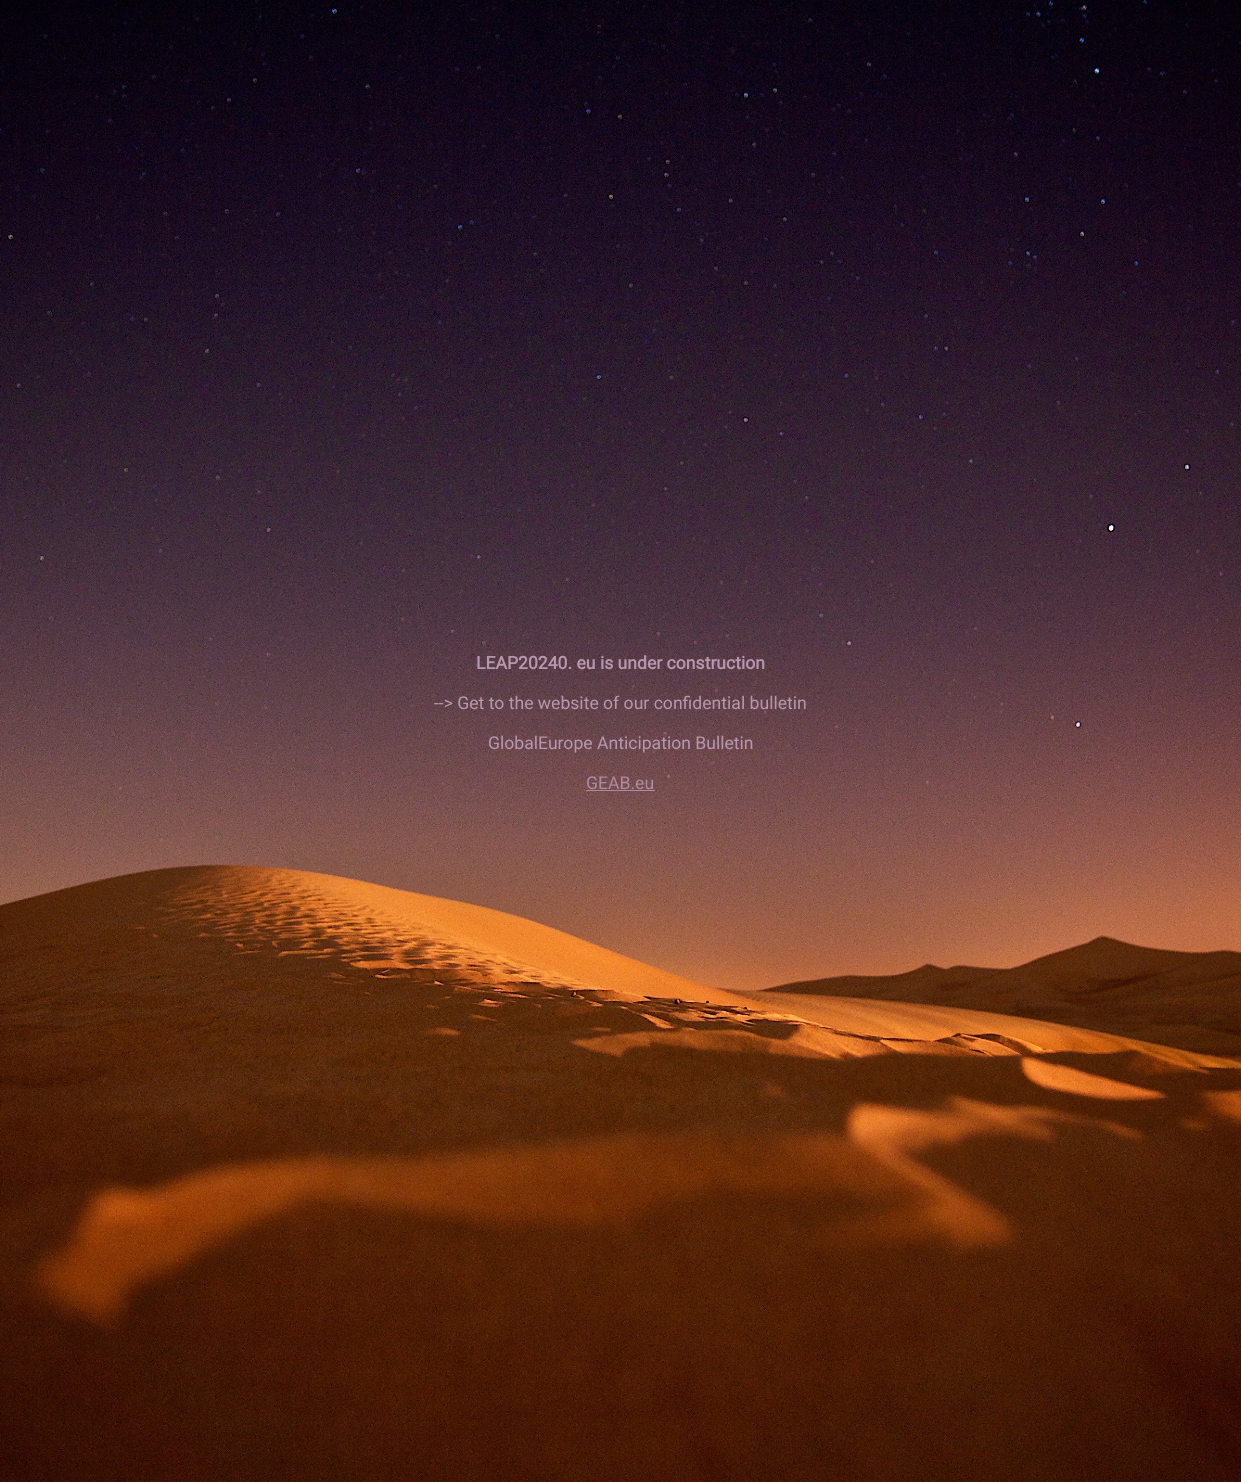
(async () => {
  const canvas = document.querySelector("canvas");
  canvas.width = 1241;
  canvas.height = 1482;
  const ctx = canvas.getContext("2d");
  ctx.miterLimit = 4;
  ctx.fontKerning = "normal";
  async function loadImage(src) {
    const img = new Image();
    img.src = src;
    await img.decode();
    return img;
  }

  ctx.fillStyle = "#ffffff";
  ctx.fillRect(0, 0, 1241, 1482);
  ctx.drawImage(await loadImage("img/1.png"), 0, 0, 1241, 1482);
  ctx.fillStyle = "rgba(182, 151, 173, 0.85)";
  ctx.fillRect(586, 790, 69, 1);
  ctx.font = "bold 17.6px Roboto";
  ctx.fillStyle = "#b697ad";
  ctx.fillText("LEAP20240. eu is under construction", 476, 669);
  ctx.font = "17.6px Roboto";
  ctx.fillText("--> Get to the website of our confidential bulletin", 434, 709);
  ctx.fillText("GlobalEurope Anticipation Bulletin", 488, 749);
  ctx.fillStyle = "#ac8c9f";
  ctx.fillText("GEAB.eu", 586, 789);
})();
